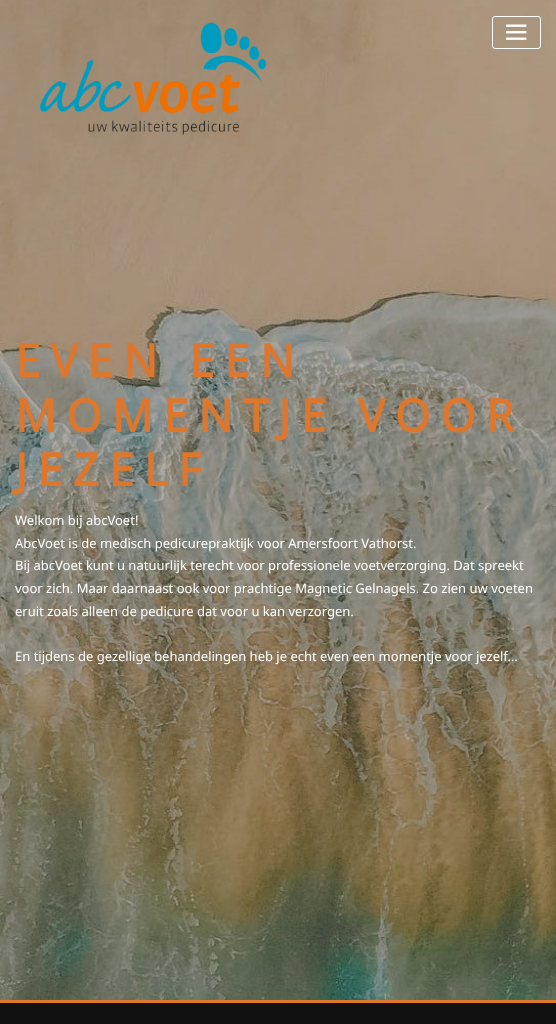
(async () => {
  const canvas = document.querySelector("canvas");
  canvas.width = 556;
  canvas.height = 1024;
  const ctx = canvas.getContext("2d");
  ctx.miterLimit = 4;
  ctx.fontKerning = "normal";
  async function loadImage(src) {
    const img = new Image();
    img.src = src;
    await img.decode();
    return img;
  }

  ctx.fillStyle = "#ffffff";
  ctx.fillRect(0, 0, 556, 1024);
  ctx.drawImage(await loadImage("img/1.png"), 0, 0, 556, 1000);
  ctx.drawImage(await loadImage("img/2.png"), 39, 22, 228, 113);
  ctx.beginPath();
  ctx.roundRect(492.5, 16.5, 48, 32, 2.5);
  ctx.strokeStyle = "#ffffff";
  ctx.stroke();
  ctx.drawImage(await loadImage("img/3.png"), 506, 24, 21, 16);
  ctx.fillStyle = "#111111";
  ctx.fillRect(0, 1003, 556, 21);
  ctx.fillStyle = "#dd772e";
  ctx.fillRect(0, 1000, 556, 3);
  ctx.letterSpacing = "10px";
  ctx.font = "bold 45.5px Noto Sans";
  for (const [text, x, y] of [
    ["EVEN EEN", 15, 377],
    ["MOMENTJE VOOR", 15, 432],
    ["JEZELF", 15, 486],
  ]) {
    ctx.fillText(text, x, y);
  }
  ctx.letterSpacing = "0px";
  ctx.font = "13px Noto Sans";
  ctx.fillStyle = "#ffffff";
  for (const [text, x, y] of [
    ["Welkom bij abcVoet!", 15, 525],
    ["AbcVoet is de medisch pedicurepraktijk voor Amersfoort Vathorst.", 15, 548],
    ["Bij abcVoet kunt u natuurlijk terecht voor professionele voetverzorging. Dat spreekt", 15, 570],
    ["voor zich. Maar daarnaast ook voor prachtige Magnetic Gelnagels. Zo zien uw voeten", 15, 593],
    ["eruit zoals alleen de pedicure dat voor u kan verzorgen.", 15, 616],
    ["En tijdens de gezellige behandelingen heb je echt even een momentje voor jezelf…", 15, 661],
  ]) {
    ctx.fillText(text, x, y);
  }
})();
